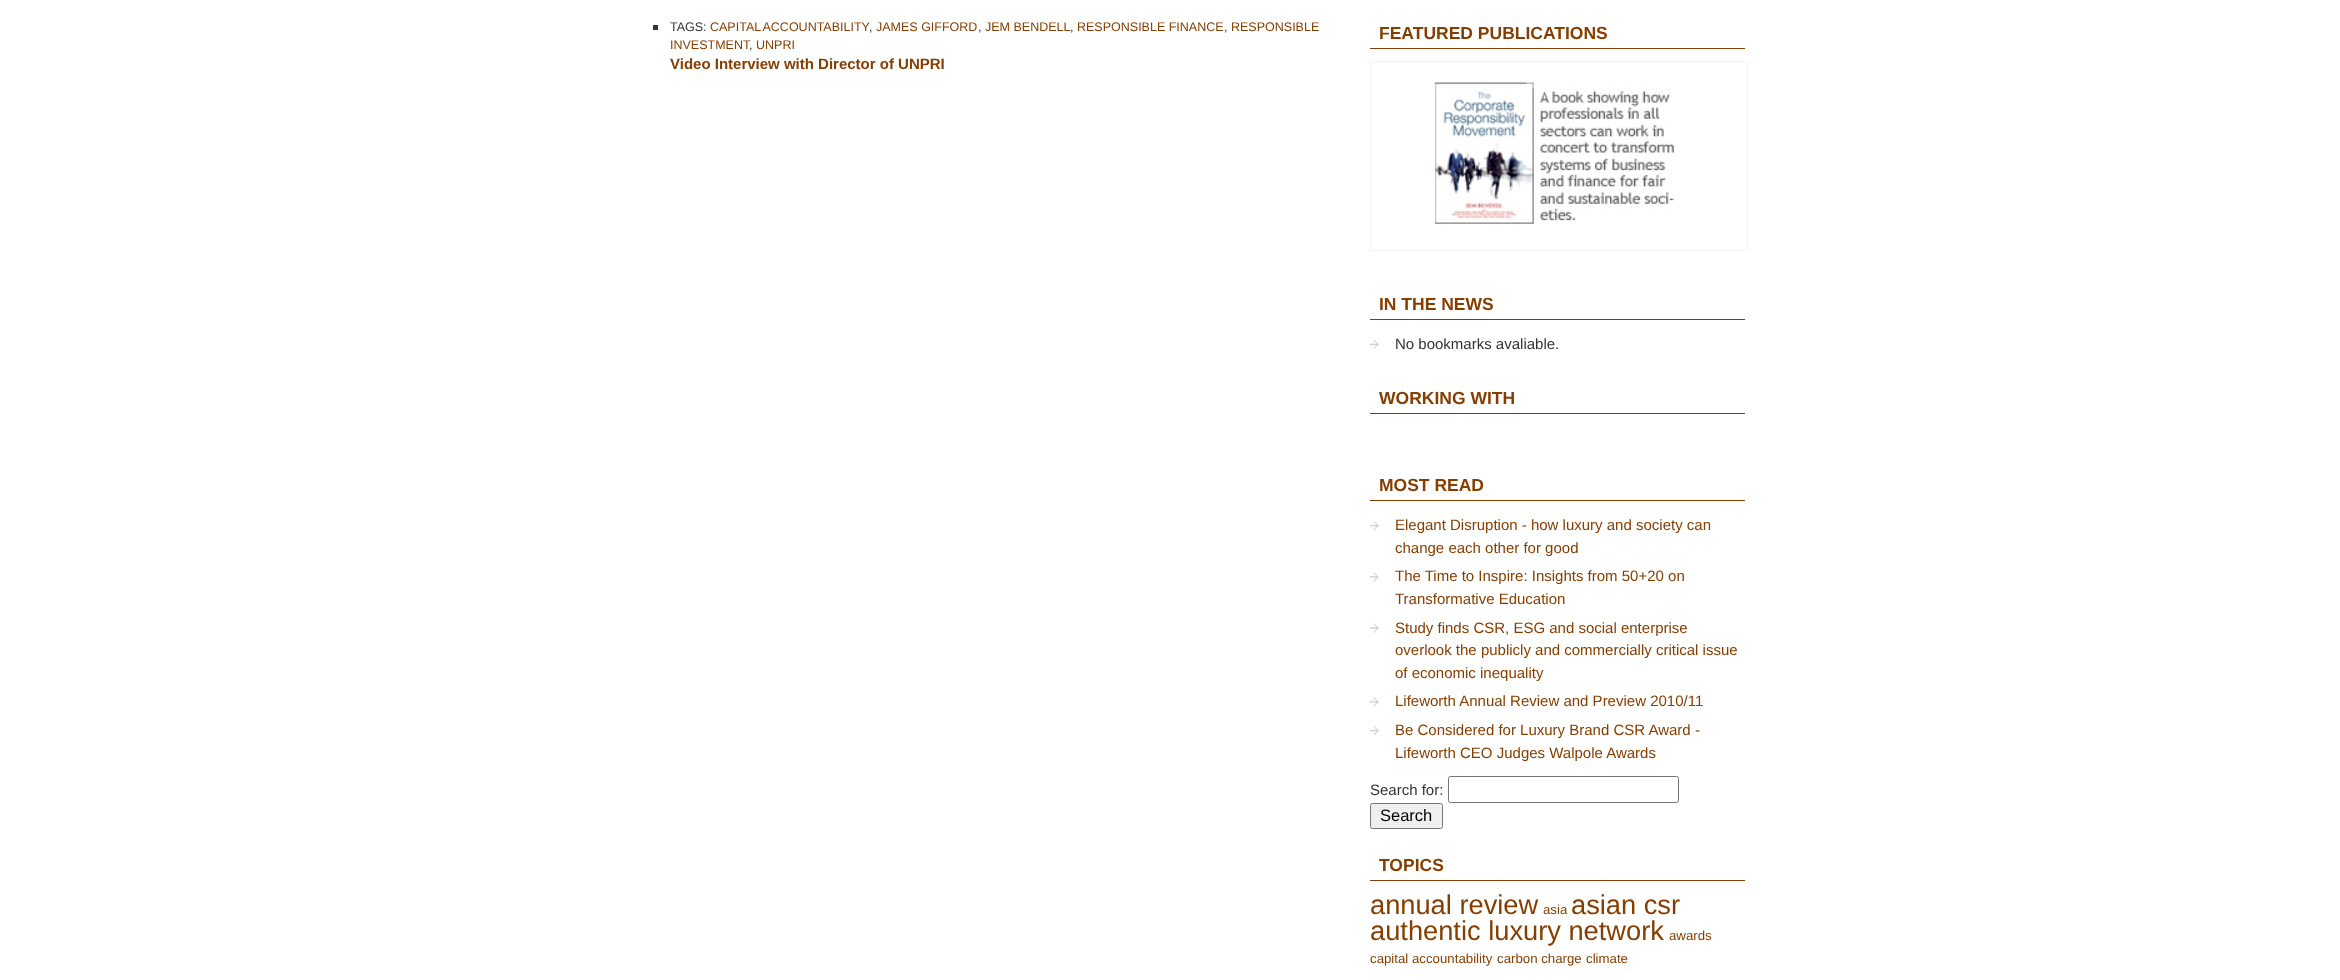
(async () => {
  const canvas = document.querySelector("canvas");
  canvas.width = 2340;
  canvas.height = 980;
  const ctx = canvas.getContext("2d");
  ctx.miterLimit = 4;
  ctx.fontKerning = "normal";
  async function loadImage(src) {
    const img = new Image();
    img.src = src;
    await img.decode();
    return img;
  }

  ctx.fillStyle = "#ffffff";
  ctx.fillRect(0, 0, 2340, 980);
  ctx.fillStyle = "#333333";
  ctx.fillRect(653, 25, 5, 5);
  ctx.fillStyle = "#853e00";
  ctx.fillRect(1370, 48, 375, 1);
  ctx.strokeStyle = "#f5f4f3";
  ctx.strokeRect(1370.5, 61.5, 377, 189);
  ctx.drawImage(await loadImage("img/1.png"), 1434, 82, 240, 142);
  ctx.fillStyle = "rgba(255, 255, 255, 0.4)";
  ctx.fillRect(1526, 82, 8, 6);
  ctx.fillStyle = "#853e00";
  ctx.fillRect(1370, 319, 375, 1);
  ctx.drawImage(await loadImage("img/2.png"), 1370, 340, 9, 9);
  ctx.fillRect(1370, 413, 375, 1);
  ctx.fillRect(1370, 500, 375, 1);
  ctx.drawImage(await loadImage("img/3.png"), 1370, 521, 9, 10);
  ctx.drawImage(await loadImage("img/4.png"), 1370, 572, 9, 10);
  ctx.drawImage(await loadImage("img/5.png"), 1370, 623, 9, 10);
  ctx.drawImage(await loadImage("img/6.png"), 1370, 697, 9, 10);
  ctx.drawImage(await loadImage("img/3.png"), 1370, 726, 9, 10);
  ctx.beginPath();
  ctx.roundRect(1448.5, 776.5, 230, 26, 2);
  ctx.strokeStyle = "#767676";
  ctx.stroke();
  ctx.fillStyle = "#efefef";
  ctx.beginPath();
  ctx.roundRect(1370.5, 803.5, 72, 25, 2);
  ctx.fill();
  ctx.stroke();
  ctx.fillStyle = "#853e00";
  ctx.fillRect(1370, 880, 375, 1);
  ctx.font = "12.5px Liberation Sans";
  ctx.fillStyle = "#333333";
  ctx.fillText("TAGS:", 670, 31);
  ctx.wordSpacing = "-1px";
  ctx.fillStyle = "#853e00";
  ctx.fillText("CAPITAL ACCOUNTABILITY", 710, 31);
  ctx.wordSpacing = "0px";
  for (const [text, x, y] of [
    ["JAMES GIFFORD", 876, 31],
    ["JEM BENDELL", 985, 31],
    ["RESPONSIBLE FINANCE", 1077, 31],
    ["RESPONSIBLE", 1231, 31],
  ]) {
    ctx.fillText(text, x, y);
  }
  ctx.fillStyle = "#333333";
  for (const [text, x, y] of [
    [",", 869, 31],
    [",", 978, 31],
    [",", 1070, 31],
    [",", 1224, 31],
  ]) {
    ctx.fillText(text, x, y);
  }
  ctx.fillStyle = "#853e00";
  ctx.fillText("INVESTMENT", 670, 49);
  ctx.fillText("UNPRI", 756, 49);
  ctx.fillStyle = "#333333";
  ctx.fillText(",", 749, 49);
  ctx.font = "bold 15px Liberation Sans";
  ctx.fillStyle = "#853e00";
  ctx.fillText("Video Interview with Director of UNPRI", 670, 69);
  ctx.font = "bold 17.5px Liberation Sans";
  ctx.fillText("FEATURED PUBLICATIONS", 1379, 39);
  ctx.fillText("IN THE NEWS", 1379, 310);
  ctx.font = "15px Liberation Sans";
  ctx.fillStyle = "#333333";
  ctx.fillText("No bookmarks avaliable.", 1395, 349);
  ctx.font = "bold 17.5px Liberation Sans";
  ctx.fillStyle = "#853e00";
  ctx.fillText("WORKING WITH", 1379, 404);
  ctx.fillText("MOST READ", 1379, 491);
  ctx.font = "15px Liberation Sans";
  for (const [text, x, y] of [
    ["Elegant Disruption - how luxury and society can", 1395, 530],
    ["change each other for good", 1395, 553],
    ["The Time to Inspire: Insights from 50+20 on", 1395, 581],
    ["Transformative Education", 1395, 604],
    ["Study finds CSR, ESG and social enterprise", 1395, 633],
    ["overlook the publicly and commercially critical issue", 1395, 655],
    ["of economic inequality", 1395, 678],
    ["Lifeworth Annual Review and Preview 2010/11", 1395, 706],
    ["Be Considered for Luxury Brand CSR Award -", 1395, 735],
    ["Lifeworth CEO Judges Walpole Awards", 1395, 758],
  ]) {
    ctx.fillText(text, x, y);
  }
  ctx.fillStyle = "#333333";
  ctx.fillText("Search for:", 1370, 795);
  ctx.font = "16.5px Liberation Sans";
  ctx.fillStyle = "#000000";
  ctx.fillText("Search", 1380, 821);
  ctx.font = "bold 17.5px Liberation Sans";
  ctx.fillStyle = "#853e00";
  ctx.fillText("TOPICS", 1379, 871);
  ctx.font = "27.25px Liberation Sans";
  ctx.fillText("annual review", 1370, 914);
  ctx.font = "13.25px Liberation Sans";
  ctx.fillText("asia", 1543, 914);
  ctx.font = "27.25px Liberation Sans";
  ctx.fillText("asian csr", 1571, 914);
  ctx.fillText("authentic luxury network", 1370, 940);
  ctx.font = "13.25px Liberation Sans";
  for (const [text, x, y] of [
    ["awards", 1669, 940],
    ["capital accountability", 1370, 963],
    ["carbon charge", 1497, 963],
    ["climate", 1586, 963],
  ]) {
    ctx.fillText(text, x, y);
  }
})();
